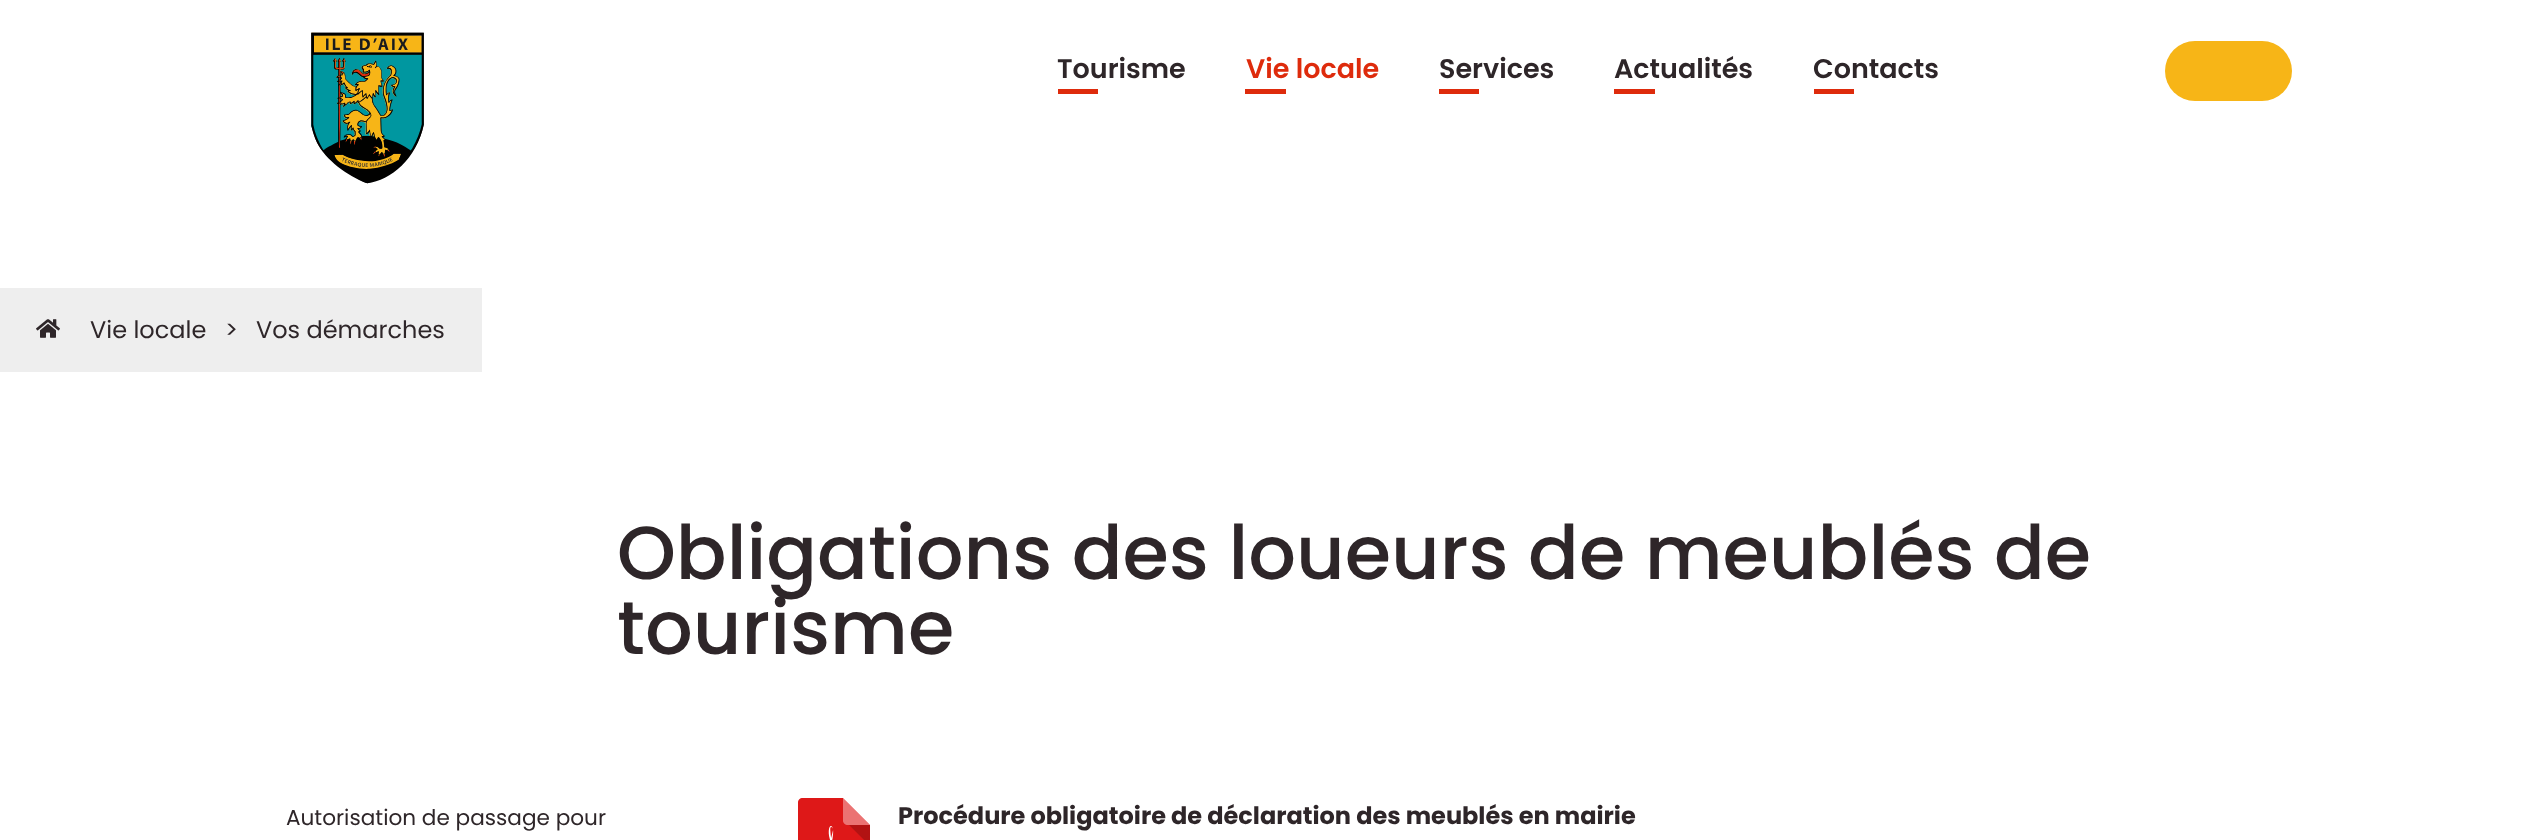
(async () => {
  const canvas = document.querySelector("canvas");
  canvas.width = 2546;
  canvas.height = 840;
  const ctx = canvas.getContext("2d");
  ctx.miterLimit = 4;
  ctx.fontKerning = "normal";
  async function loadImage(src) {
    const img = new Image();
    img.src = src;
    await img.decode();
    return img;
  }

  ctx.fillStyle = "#ffffff";
  ctx.fillRect(0, 0, 2546, 840);
  ctx.drawImage(await loadImage("img/1.png"), 311, 32, 113, 152);
  for (const [x, y, w, h, color] of [
    [1058, 89, 40, 5, "#de2b0c"],
    [1245, 89, 41, 5, "#de2b0c"],
    [1439, 89, 40, 5, "#de2b0c"],
    [1614, 89, 41, 5, "#de2b0c"],
    [1814, 89, 40, 5, "#de2b0c"],
  ]) {
    ctx.fillStyle = color;
    ctx.fillRect(x, y, w, h);
  }
  ctx.fillStyle = "#f7b517";
  ctx.beginPath();
  ctx.roundRect(2165, 41, 127, 60, 30);
  ctx.fill();
  ctx.fillStyle = "#eeeeee";
  ctx.fillRect(0, 288, 482, 84);
  ctx.drawImage(await loadImage("img/2.png"), 36, 319, 24, 19);
  ctx.drawImage(await loadImage("img/3.png"), 798, 798, 72, 42);
  ctx.font = "600 27px Poppins";
  ctx.fillStyle = "#2e2629";
  ctx.fillText("Tourisme", 1057, 78);
  ctx.fillStyle = "#de2b0c";
  ctx.fillText("Vie locale", 1246, 78);
  ctx.fillStyle = "#2e2629";
  for (const [text, x, y] of [
    ["Services", 1439, 78],
    ["Actualités", 1614, 78],
    ["Contacts", 1813, 78],
  ]) {
    ctx.fillText(text, x, y);
  }
  ctx.font = "24px Poppins";
  for (const [text, x, y] of [
    ["Vie locale", 90, 338],
    [">", 225, 338],
    ["Vos démarches", 256, 338],
  ]) {
    ctx.fillText(text, x, y);
  }
  ctx.font = "500 75px Poppins";
  ctx.fillText("Obligations des loueurs de meublés de", 617, 579);
  ctx.fillText("tourisme", 617, 654);
  ctx.font = "21.6px Poppins";
  ctx.fillText("Autorisation de passage pour", 286, 825);
  ctx.font = "bold 24px Poppins";
  ctx.fillText("Procédure obligatoire de déclaration des meublés en mairie", 898, 824);
})();
